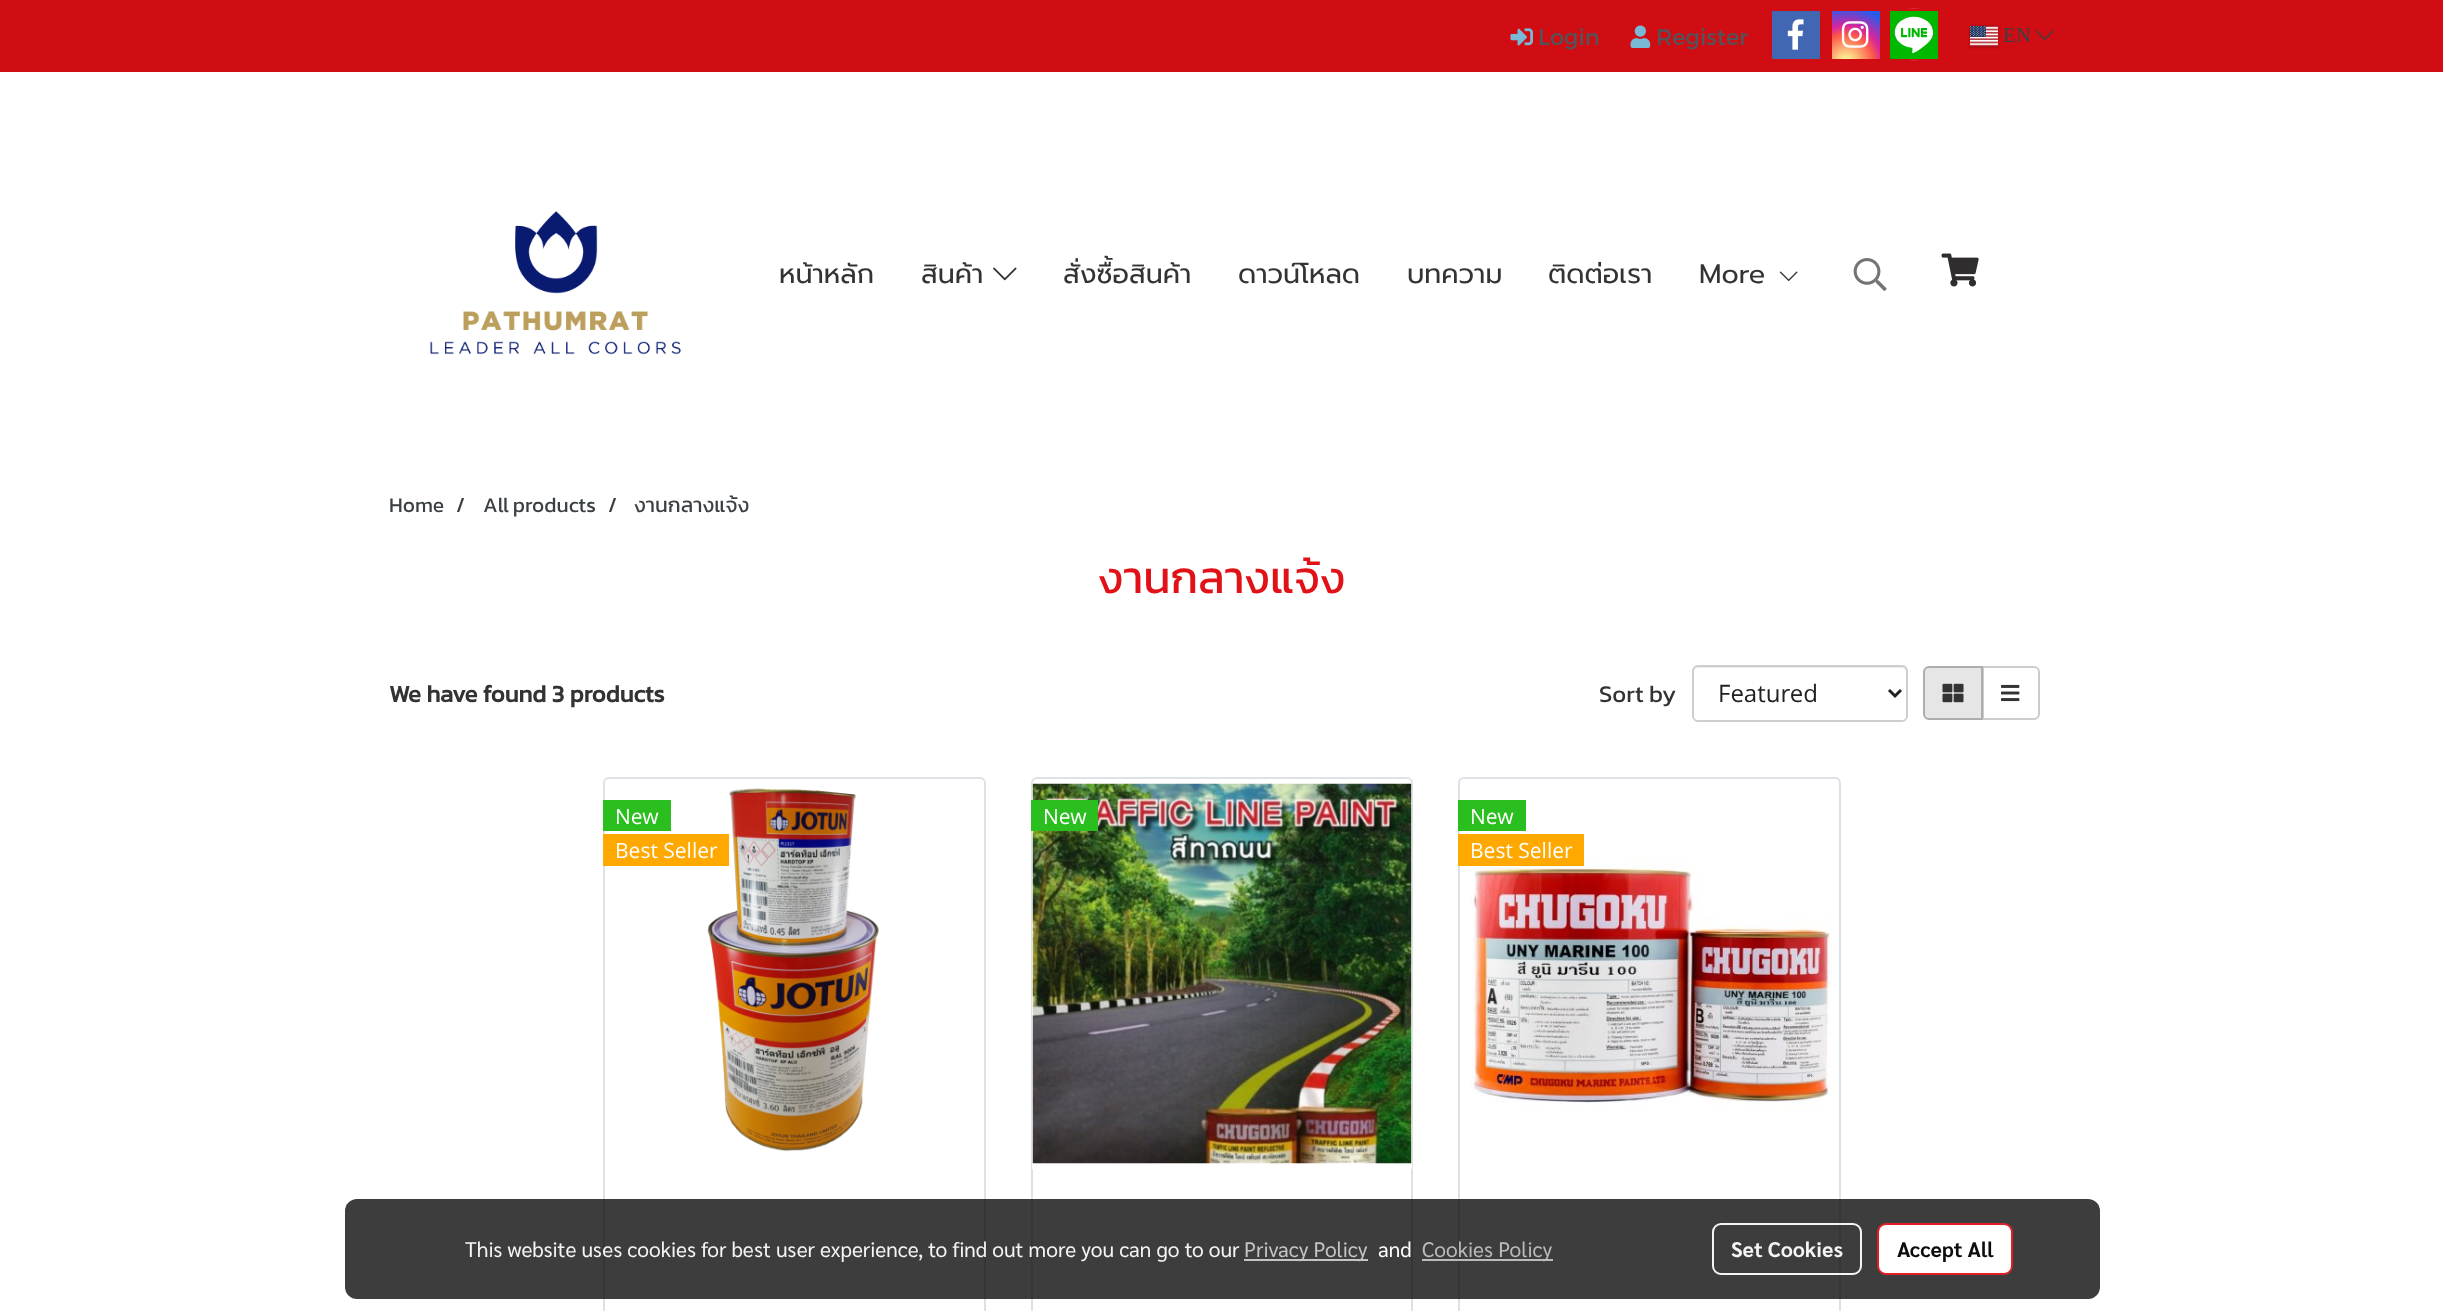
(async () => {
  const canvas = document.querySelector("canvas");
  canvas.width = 2443;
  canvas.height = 1311;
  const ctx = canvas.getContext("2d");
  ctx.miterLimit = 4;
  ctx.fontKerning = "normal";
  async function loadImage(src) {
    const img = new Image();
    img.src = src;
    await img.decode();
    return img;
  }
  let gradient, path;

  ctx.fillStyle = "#ffffff";
  ctx.fillRect(0, 0, 2443, 1311);
  ctx.fillStyle = "#cf0d13";
  ctx.fillRect(0, 0, 2443, 72);
  ctx.drawImage(await loadImage("img/1.png"), 1510, 28, 23, 18);
  ctx.drawImage(await loadImage("img/2.png"), 1630, 25, 21, 23);
  ctx.fillStyle = "#4267b2";
  ctx.fillRect(1772, 11, 48, 48);
  ctx.drawImage(await loadImage("img/3.png"), 1787, 19, 17, 31);
  gradient = ctx.createRadialGradient(1846, 62, 0, 1846, 62, 61);
  gradient.addColorStop(0, "#fdf497");
  gradient.addColorStop(0.05, "#fdf497");
  gradient.addColorStop(0.45, "#fd5949");
  gradient.addColorStop(0.6, "#d6249f");
  gradient.addColorStop(0.9, "#285aeb");
  ctx.fillStyle = gradient;
  ctx.fillRect(1832, 11, 48, 48);
  ctx.drawImage(await loadImage("img/4.png"), 1841, 21, 28, 27);
  ctx.fillStyle = "#00b800";
  ctx.fillRect(1890, 11, 48, 48);
  ctx.drawImage(await loadImage("img/5.png"), 1894, 8, 39, 53);
  ctx.fillStyle = "rgba(0, 0, 0, 0.25)";
  ctx.filter = "blur(1.5px)";
  ctx.beginPath();
  ctx.rect(1970, 26, 28, 21);
  ctx.fill();
  ctx.filter = "none";
  ctx.drawImage(await loadImage("img/6.png"), 1970, 26, 28, 21);
  ctx.drawImage(await loadImage("img/7.png"), 2035, 30, 19, 11);
  ctx.drawImage(await loadImage("img/8.png"), 430, 211, 251, 144);
  ctx.drawImage(await loadImage("img/9.png"), 993, 267, 24, 14);
  ctx.drawImage(await loadImage("img/10.png"), 1779, 271, 19, 10);
  ctx.drawImage(await loadImage("img/11.png"), 1853, 258, 34, 33);
  ctx.drawImage(await loadImage("img/12.png"), 1941, 253, 38, 34);
  ctx.fillStyle = "#ececec";
  path = new Path2D("M1698 668H1902C1904 668 1906 670 1906 672V718C1907 717 1907 716 1907 715V671C1907 668 1905 666 1902 666H1699C1696 666 1694 668 1694 671V672C1694 670 1696 668 1698 668Z");
  ctx.fill(path);
  ctx.beginPath();
  ctx.roundRect(1693, 666, 214, 55, 5);
  ctx.strokeStyle = "#cdced2";
  ctx.lineWidth = 2;
  ctx.stroke();
  path = new Path2D("M1889 690L1895 696L1901 690");
  ctx.strokeStyle = "#212121";
  ctx.lineWidth = 3;
  ctx.stroke(path);
  ctx.beginPath();
  ctx.roundRect(1983, 667, 56, 52, [0, 5, 5, 0]);
  ctx.strokeStyle = "#cccccc";
  ctx.lineWidth = 2;
  ctx.stroke();
  ctx.fillStyle = "#e6e6e6";
  ctx.beginPath();
  ctx.roundRect(1924, 667, 58, 52, [5, 0, 0, 5]);
  ctx.fill();
  ctx.strokeStyle = "#adadad";
  ctx.stroke();
  ctx.drawImage(await loadImage("img/13.png"), 1942, 683, 22, 20);
  ctx.drawImage(await loadImage("img/14.png"), 2001, 684, 19, 18);
  ctx.beginPath();
  ctx.roundRect(604, 778, 381, 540, 5);
  ctx.strokeStyle = "#dee2e6";
  ctx.stroke();
  ctx.drawImage(await loadImage("img/15.png"), 707, 788, 172, 364);
  ctx.fillStyle = "#2bbe1f";
  ctx.fillRect(603, 800, 68, 31);
  ctx.fillStyle = "#ffa800";
  ctx.fillRect(603, 834, 126, 32);
  ctx.beginPath();
  ctx.roundRect(1032, 778, 380, 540, 5);
  ctx.stroke();
  ctx.save();
  ctx.beginPath();
  ctx.roundRect(1032, 779, 380, 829, 5);
  ctx.clip();
  ctx.fillStyle = "#ffffff";
  ctx.beginPath();
  ctx.roundRect(1032, 779, 380, 390, [6, 6, 0, 0]);
  ctx.fill();
  ctx.restore();
  ctx.drawImage(await loadImage("img/16.png"), 1032, 783, 380, 381);
  ctx.fillStyle = "#2bbe1f";
  ctx.fillRect(1031, 800, 67, 31);
  ctx.beginPath();
  ctx.roundRect(1459, 778, 381, 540, 5);
  ctx.stroke();
  ctx.drawImage(await loadImage("img/17.png"), 1471, 859, 361, 251);
  ctx.fillRect(1458, 800, 68, 31);
  ctx.fillStyle = "#ffa800";
  ctx.fillRect(1458, 834, 126, 32);
  ctx.fillStyle = "rgba(0, 0, 0, 0.76)";
  ctx.beginPath();
  ctx.roundRect(345, 1199, 1755, 100, 12);
  ctx.fill();
  ctx.fillStyle = "#c5c5c5";
  ctx.fillRect(1244, 1259, 124, 2);
  ctx.fillStyle = "rgba(194, 194, 194, 0.95)";
  ctx.fillRect(1422, 1259, 131, 2);
  ctx.beginPath();
  ctx.roundRect(1713, 1224, 148, 50, 8);
  ctx.strokeStyle = "rgba(255, 255, 255, 0.95)";
  ctx.stroke();
  ctx.fillStyle = "#ffffff";
  ctx.beginPath();
  ctx.roundRect(1878, 1224, 134, 50, 8);
  ctx.fill();
  ctx.strokeStyle = "#e21e24";
  ctx.stroke();
  ctx.font = "22.5px Montserrat";
  ctx.fillStyle = "#535459";
  ctx.fillText("Login", 1538, 45);
  ctx.fillText("Register", 1656, 45);
  ctx.font = "21px Liberation Serif";
  ctx.fillStyle = "#3b4044";
  ctx.fillText("EN", 2003, 42);
  ctx.font = "27px Prompt";
  ctx.fillStyle = "#333333";
  for (const [text, x, y] of [
    ["หน้าหลัก", 779, 283],
    ["สินค้า", 921, 283],
    ["สั่งซื้อสินค้า", 1063, 283],
    ["ดาวน์โหลด", 1238, 283],
    ["บทความ", 1407, 283],
    ["ติดต่อเรา", 1548, 283],
    ["More", 1699, 283],
  ]) {
    ctx.fillText(text, x, y);
  }
  ctx.font = "21px Kanit";
  ctx.fillStyle = "#3b4044";
  ctx.fillText("Home", 389, 512);
  ctx.fillText("/", 456, 512);
  ctx.wordSpacing = "-1px";
  ctx.fillText("All products", 483, 512);
  ctx.wordSpacing = "0px";
  ctx.fillText("/", 608, 512);
  ctx.fillText("งานกลางแจ้ง", 634, 512);
  ctx.font = "45px Kanit";
  ctx.fillStyle = "#e01218";
  ctx.fillText("งานกลางแจ้ง", 1098, 593);
  ctx.font = "bold 24px Kanit";
  ctx.fillStyle = "#333333";
  ctx.fillText("We have found 3 products", 389, 702);
  ctx.font = "24px Kanit";
  ctx.fillText("Sort by", 1599, 702);
  ctx.font = "24px Open Sans";
  ctx.fillStyle = "#212121";
  ctx.fillText("Featured", 1718, 702);
  ctx.font = "21px Open Sans";
  ctx.fillStyle = "#ffffff";
  for (const [text, x, y] of [
    ["New", 615, 824],
    ["Best Seller", 615, 858],
    ["New", 1043, 824],
    ["New", 1470, 824],
    ["Best Seller", 1470, 858],
  ]) {
    ctx.fillText(text, x, y);
  }
  ctx.font = "21px Sarabun";
  ctx.fillStyle = "#f5f5f5";
  ctx.fillText("This website uses cookies for best user experience, to find out more you can go to our", 465, 1257);
  ctx.fillStyle = "#c5c5c5";
  ctx.fillText("Privacy Policy", 1244, 1257);
  ctx.fillStyle = "#ffffff";
  ctx.fillText("and", 1378, 1257);
  ctx.fillStyle = "#bbbbbb";
  ctx.fillText("Cookies Policy", 1422, 1257);
  ctx.font = "bold 21px Sarabun";
  ctx.fillStyle = "#f5f5f5";
  ctx.fillText("Set Cookies", 1731, 1257);
  ctx.fillStyle = "#0d0d0d";
  ctx.fillText("Accept All", 1897, 1257);
})();
